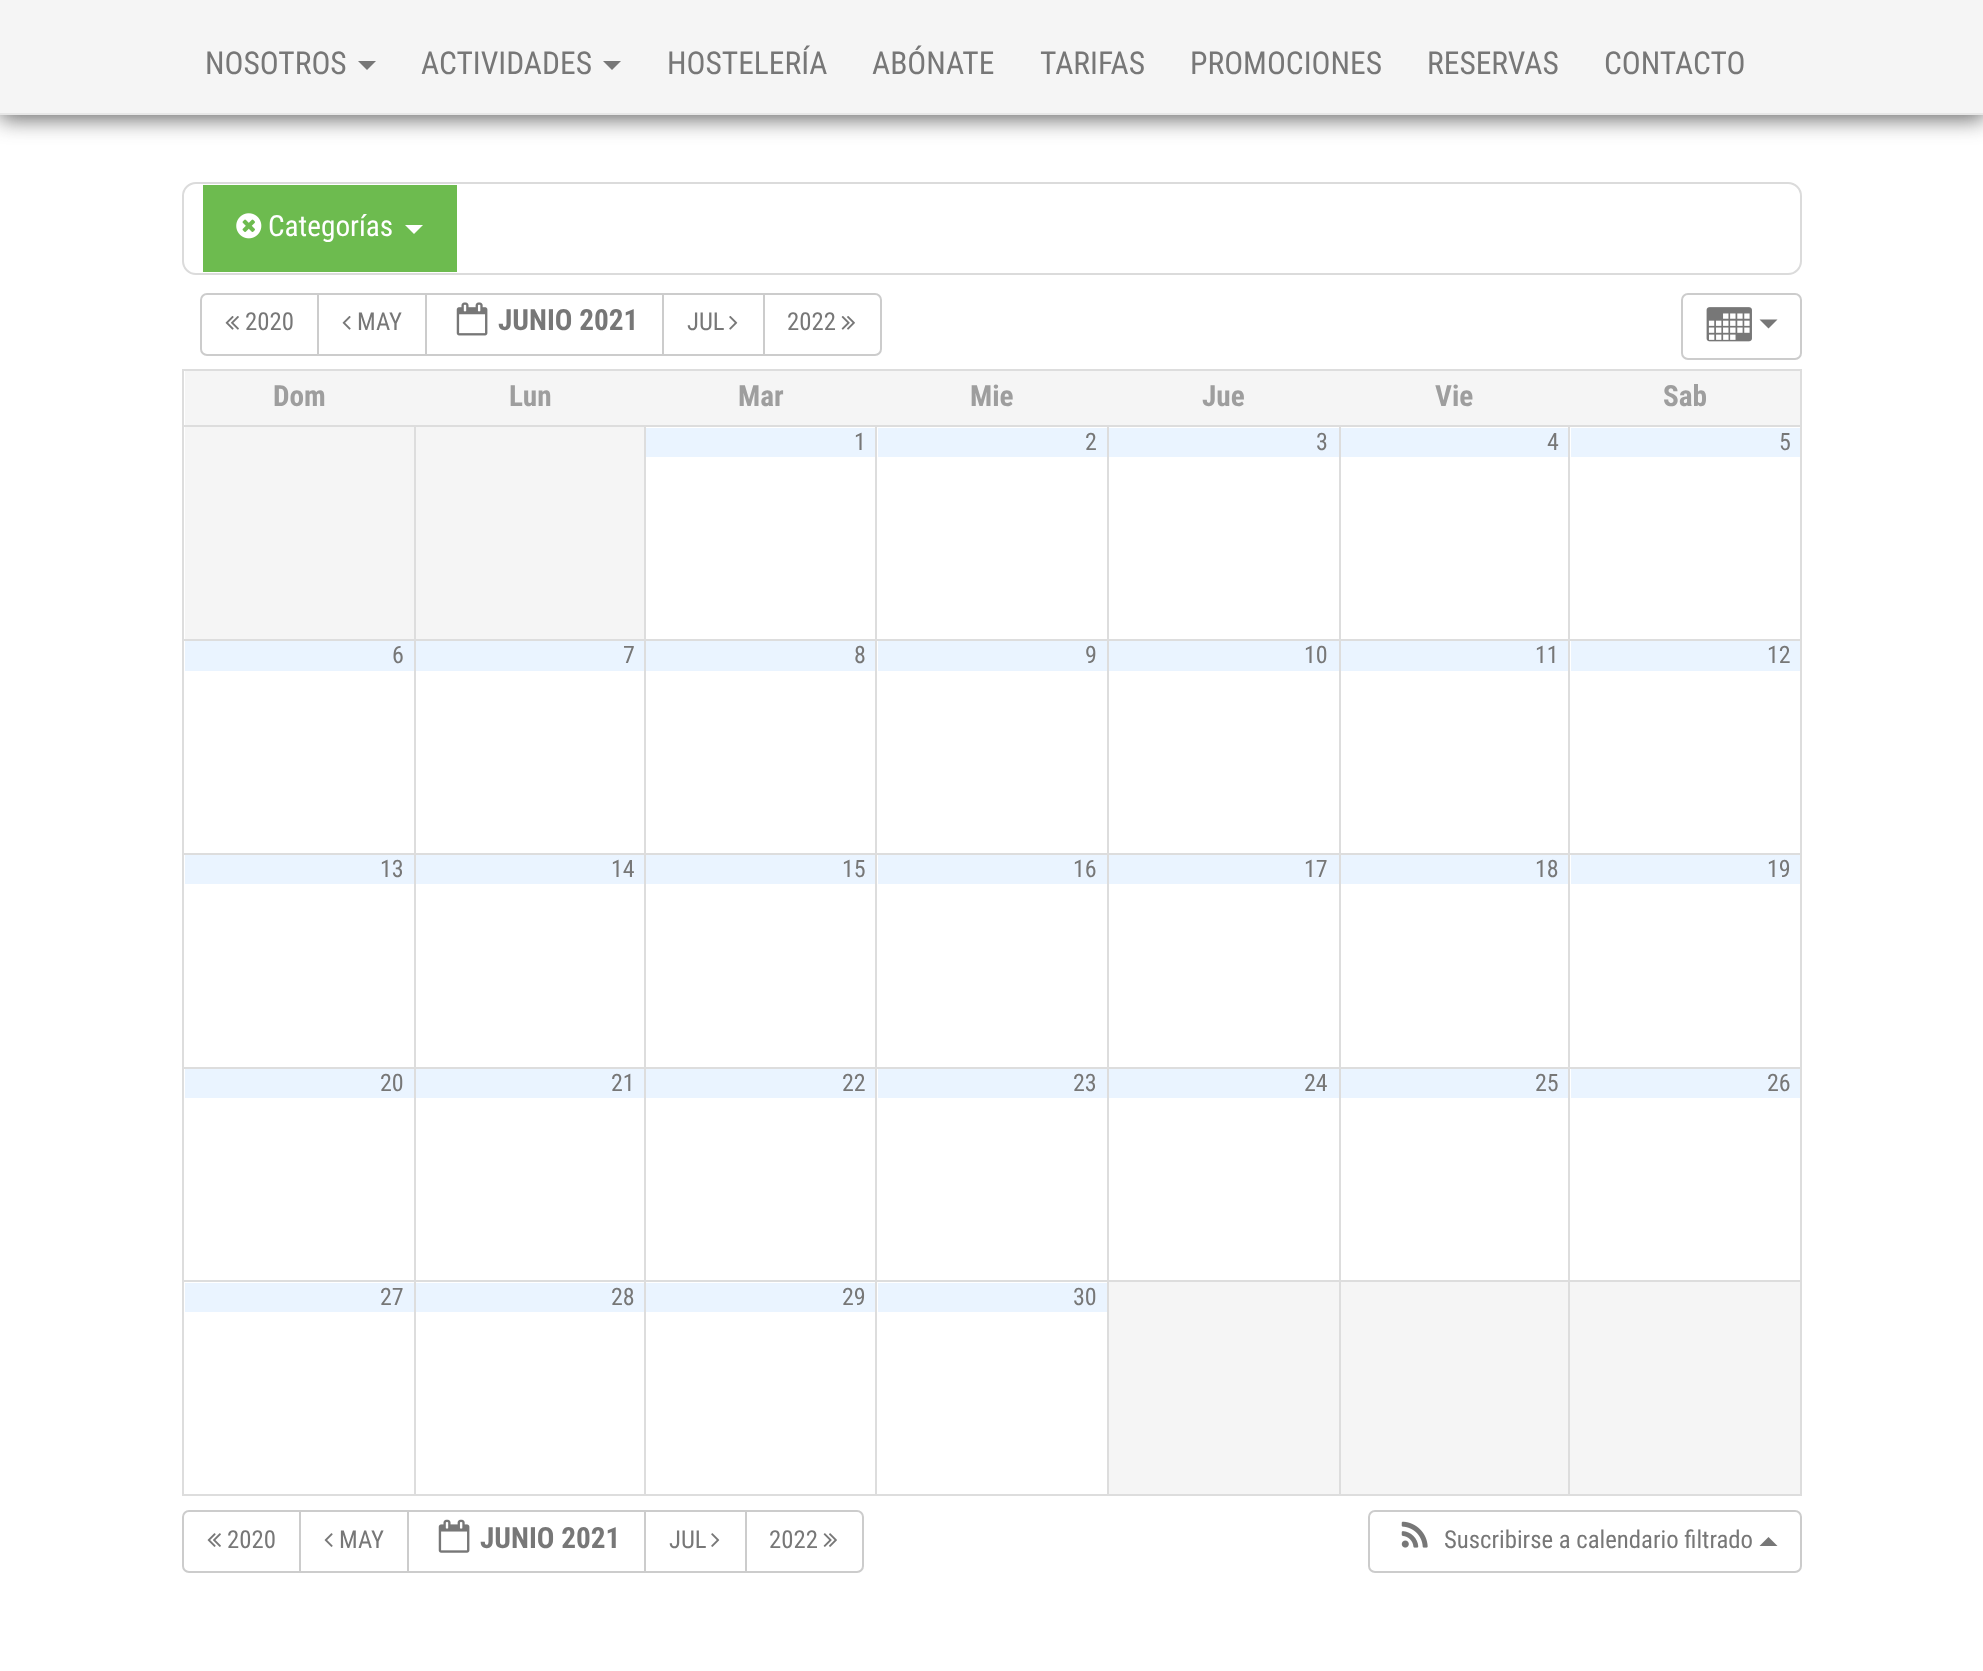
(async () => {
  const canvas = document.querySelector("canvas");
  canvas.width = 1983;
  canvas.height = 1671;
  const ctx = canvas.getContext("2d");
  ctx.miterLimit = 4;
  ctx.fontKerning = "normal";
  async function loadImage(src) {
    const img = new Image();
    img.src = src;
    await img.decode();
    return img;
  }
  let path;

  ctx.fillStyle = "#ffffff";
  ctx.fillRect(0, 0, 1983, 1671);
  ctx.fillStyle = "rgba(50, 50, 50, 0.75)";
  ctx.filter = "blur(11px)";
  ctx.beginPath();
  ctx.rect(0, -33, 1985, 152);
  ctx.fill();
  ctx.filter = "none";
  ctx.fillStyle = "#f5f5f5";
  ctx.fillRect(0, 0, 1983, 113);
  ctx.fillStyle = "#e7e7e7";
  ctx.fillRect(0, 113, 1983, 2);
  ctx.fillStyle = "#777777";
  path = new Path2D("M358 61H376L367 70Z");
  ctx.fill(path);
  path = new Path2D("M603 61H621L612 70Z");
  ctx.fill(path);
  ctx.beginPath();
  ctx.roundRect(183, 183, 1618, 91, 13);
  ctx.strokeStyle = "#dbdbdb";
  ctx.lineWidth = 2;
  ctx.stroke();
  ctx.fillStyle = "#6dbb4f";
  ctx.fillRect(203, 185, 254, 87);
  ctx.drawImage(await loadImage("img/1.png"), 236, 213, 26, 26);
  ctx.fillStyle = "#ffffff";
  path = new Path2D("M405 225H423L414 234Z");
  ctx.fill(path);
  ctx.beginPath();
  ctx.roundRect(201, 294, 118, 61, [6, 0, 0, 6]);
  ctx.strokeStyle = "#cccccc";
  ctx.stroke();
  ctx.drawImage(await loadImage("img/2.png"), 225, 316, 14, 14);
  ctx.fillRect(319, 295, 1, 59);
  ctx.strokeRect(318, 294, 109, 61);
  ctx.drawImage(await loadImage("img/3.png"), 342, 316, 9, 14);
  ctx.fillRect(427, 295, 1, 59);
  ctx.strokeRect(426, 294, 237, 61);
  ctx.drawImage(await loadImage("img/4.png"), 456, 302, 32, 34);
  ctx.strokeRect(663, 294, 101, 61);
  ctx.drawImage(await loadImage("img/5.png"), 729, 316, 9, 14);
  ctx.beginPath();
  ctx.roundRect(764, 294, 117, 61, [0, 6, 6, 0]);
  ctx.fill();
  ctx.stroke();
  ctx.drawImage(await loadImage("img/6.png"), 841, 316, 14, 14);
  ctx.beginPath();
  ctx.roundRect(1682, 294, 119, 65, 6);
  ctx.stroke();
  ctx.drawImage(await loadImage("img/7.png"), 1706, 307, 46, 35);
  ctx.fillStyle = "#777777";
  path = new Path2D("M1759.5 319.5H1777.5L1768.5 328.5Z");
  ctx.fill(path);
  for (const [x, y, w, h, color] of [
    [182, 369, 1620, 2, "#dddddd"],
    [1800, 369, 2, 1127, "#dddddd"],
    [182, 1494, 1620, 2, "#dddddd"],
    [182, 369, 2, 1127, "#dddddd"],
    [185, 371, 1615, 54, "#f5f5f5"],
    [185, 427, 229, 212, "#f5f5f5"],
    [1568, 425, 234, 2, "#dddddd"],
    [1568, 639, 234, 2, "#dddddd"],
    [1568, 853, 234, 2, "#dddddd"],
    [1568, 1067, 234, 2, "#dddddd"],
    [1341, 1282, 459, 212, "#f5f5f5"],
    [1568, 1280, 234, 2, "#dddddd"],
    [1568, 1280, 2, 216, "#dddddd"],
    [1339, 1280, 232, 2, "#dddddd"],
    [1568, 1067, 2, 216, "#dddddd"],
    [1339, 1067, 232, 2, "#dddddd"],
    [1568, 853, 2, 216, "#dddddd"],
    [1339, 853, 232, 2, "#dddddd"],
    [1568, 639, 2, 216, "#dddddd"],
    [1339, 639, 232, 2, "#dddddd"],
    [1568, 425, 2, 216, "#dddddd"],
    [1339, 425, 232, 2, "#dddddd"],
    [1339, 1280, 2, 216, "#dddddd"],
    [1107, 1280, 234, 2, "#dddddd"],
    [1339, 1067, 2, 216, "#dddddd"],
    [1107, 1067, 234, 2, "#dddddd"],
    [1339, 853, 2, 216, "#dddddd"],
    [1107, 853, 234, 2, "#dddddd"],
    [1339, 639, 2, 216, "#dddddd"],
    [1107, 639, 234, 2, "#dddddd"],
    [1339, 425, 2, 216, "#dddddd"],
    [1107, 425, 234, 2, "#dddddd"],
    [1107, 1280, 2, 216, "#dddddd"],
    [875, 1280, 234, 2, "#dddddd"],
    [1107, 1067, 2, 216, "#dddddd"],
    [875, 1067, 234, 2, "#dddddd"],
    [1107, 853, 2, 216, "#dddddd"],
    [875, 853, 234, 2, "#dddddd"],
    [1107, 639, 2, 216, "#dddddd"],
    [875, 639, 234, 2, "#dddddd"],
    [1107, 425, 2, 216, "#dddddd"],
    [875, 425, 234, 2, "#dddddd"],
    [875, 1280, 2, 216, "#dddddd"],
    [644, 1280, 234, 2, "#dddddd"],
    [875, 1067, 2, 216, "#dddddd"],
    [644, 1067, 234, 2, "#dddddd"],
    [875, 853, 2, 216, "#dddddd"],
    [644, 853, 234, 2, "#dddddd"],
    [875, 639, 2, 216, "#dddddd"],
    [644, 639, 234, 2, "#dddddd"],
    [875, 425, 2, 216, "#dddddd"],
    [644, 425, 234, 2, "#dddddd"],
    [644, 1280, 2, 216, "#dddddd"],
    [414, 1280, 232, 2, "#dddddd"],
    [644, 1067, 2, 216, "#dddddd"],
    [414, 1067, 232, 2, "#dddddd"],
    [644, 853, 2, 216, "#dddddd"],
    [414, 853, 232, 2, "#dddddd"],
    [644, 639, 2, 216, "#dddddd"],
    [414, 639, 232, 2, "#dddddd"],
    [644, 425, 2, 216, "#dddddd"],
    [414, 425, 232, 2, "#dddddd"],
    [414, 1280, 2, 216, "#dddddd"],
    [182, 1280, 234, 2, "#dddddd"],
    [414, 1067, 2, 216, "#dddddd"],
    [182, 1067, 234, 2, "#dddddd"],
    [414, 853, 2, 216, "#dddddd"],
    [182, 853, 234, 2, "#dddddd"],
    [414, 639, 2, 216, "#dddddd"],
    [182, 639, 234, 2, "#dddddd"],
    [414, 425, 2, 216, "#dddddd"],
    [182, 425, 234, 2, "#dddddd"],
    [416, 427, 228, 212, "#f5f5f5"],
    [646, 428, 229, 29, "#eaf4ff"],
    [878, 428, 229, 29, "#eaf4ff"],
    [1109, 428, 230, 29, "#eaf4ff"],
    [1341, 428, 227, 29, "#eaf4ff"],
    [1571, 428, 229, 29, "#eaf4ff"],
    [185, 641, 229, 30, "#eaf4ff"],
    [416, 641, 228, 30, "#eaf4ff"],
    [646, 641, 229, 30, "#eaf4ff"],
    [878, 641, 229, 30, "#eaf4ff"],
    [1109, 641, 230, 30, "#eaf4ff"],
    [1341, 641, 227, 30, "#eaf4ff"],
    [1571, 641, 229, 30, "#eaf4ff"],
    [185, 855, 229, 29, "#eaf4ff"],
    [416, 855, 228, 29, "#eaf4ff"],
    [646, 855, 229, 29, "#eaf4ff"],
    [878, 855, 229, 29, "#eaf4ff"],
    [1109, 855, 230, 29, "#eaf4ff"],
    [1341, 855, 227, 29, "#eaf4ff"],
    [1571, 855, 229, 29, "#eaf4ff"],
    [185, 1069, 229, 29, "#eaf4ff"],
    [416, 1069, 228, 29, "#eaf4ff"],
    [646, 1069, 229, 29, "#eaf4ff"],
    [878, 1069, 229, 29, "#eaf4ff"],
    [1109, 1069, 230, 29, "#eaf4ff"],
    [1341, 1069, 227, 29, "#eaf4ff"],
    [1571, 1069, 229, 29, "#eaf4ff"],
    [1109, 1282, 230, 212, "#f5f5f5"],
    [185, 1283, 229, 29, "#eaf4ff"],
    [416, 1283, 228, 29, "#eaf4ff"],
    [646, 1283, 229, 29, "#eaf4ff"],
    [878, 1283, 229, 29, "#eaf4ff"],
  ]) {
    ctx.fillStyle = color;
    ctx.fillRect(x, y, w, h);
  }
  ctx.beginPath();
  ctx.roundRect(183, 1511, 118, 61, [6, 0, 0, 6]);
  ctx.stroke();
  ctx.drawImage(await loadImage("img/8.png"), 207, 1533, 14, 14);
  ctx.fillStyle = "#ffffff";
  ctx.fillRect(301, 1512, 1, 59);
  ctx.strokeRect(300, 1511, 109, 61);
  ctx.drawImage(await loadImage("img/9.png"), 324, 1533, 9, 14);
  ctx.fillRect(409, 1512, 1, 59);
  ctx.strokeRect(408, 1511, 237, 61);
  ctx.drawImage(await loadImage("img/10.png"), 438, 1519, 32, 34);
  ctx.strokeRect(645, 1511, 101, 61);
  ctx.drawImage(await loadImage("img/11.png"), 711, 1533, 9, 14);
  ctx.beginPath();
  ctx.roundRect(746, 1511, 117, 61, [0, 6, 6, 0]);
  ctx.fill();
  ctx.stroke();
  ctx.drawImage(await loadImage("img/12.png"), 823, 1533, 14, 14);
  ctx.beginPath();
  ctx.roundRect(1369, 1511, 432, 61, 6);
  ctx.stroke();
  ctx.drawImage(await loadImage("img/13.png"), 1401, 1521, 27, 27);
  ctx.fillStyle = "#777777";
  path = new Path2D("M1777.5 1546H1759.5L1768.5 1537Z");
  ctx.fill(path);
  ctx.font = "31.5px Roboto Condensed";
  for (const [text, x, y] of [
    ["NOSOTROS", 205, 74],
    ["ACTIVIDADES", 421, 74],
    ["HOSTELERÍA", 667, 74],
    ["ABÓNATE", 872, 74],
    ["TARIFAS", 1040, 74],
    ["PROMOCIONES", 1190, 74],
    ["RESERVAS", 1427, 74],
    ["CONTACTO", 1604, 74],
  ]) {
    ctx.fillText(text, x, y);
  }
  ctx.font = "29.25px Roboto Condensed";
  ctx.fillStyle = "#ffffff";
  ctx.fillText("Categorías", 268, 236);
  ctx.font = "24.75px Roboto Condensed";
  ctx.fillStyle = "#777777";
  ctx.fillText("2020", 245, 330);
  ctx.fillText("MAY", 357, 330);
  ctx.font = "bold 29.25px Roboto Condensed";
  ctx.fillText("JUNIO 2021", 498, 330);
  ctx.font = "24.75px Roboto Condensed";
  ctx.fillText("JUL", 687, 330);
  ctx.fillText("2022", 787, 330);
  ctx.font = "bold 29.25px Roboto Condensed";
  ctx.fillStyle = "#9e9e9e";
  for (const [text, x, y] of [
    ["Dom", 273, 406],
    ["Lun", 509, 406],
    ["Mar", 738, 406],
    ["Mie", 970, 406],
    ["Jue", 1202, 406],
    ["Vie", 1435, 406],
    ["Sab", 1663, 406],
  ]) {
    ctx.fillText(text, x, y);
  }
  ctx.font = "24px Roboto Condensed";
  ctx.fillStyle = "#777777";
  for (const [text, x, y] of [
    ["1", 854, 450],
    ["2", 1085, 450],
    ["3", 1316, 450],
    ["4", 1547, 450],
    ["5", 1779, 450],
    ["6", 392, 663],
    ["7", 623, 663],
    ["8", 854, 663],
    ["9", 1085, 663],
    ["10", 1304, 663],
    ["11", 1535, 663],
    ["12", 1767, 663],
    ["13", 380, 877],
    ["14", 611, 877],
    ["15", 842, 877],
    ["16", 1073, 877],
    ["17", 1304, 877],
    ["18", 1535, 877],
    ["19", 1767, 877],
    ["20", 380, 1091],
    ["21", 611, 1091],
    ["22", 842, 1091],
    ["23", 1073, 1091],
    ["24", 1304, 1091],
    ["25", 1535, 1091],
    ["26", 1767, 1091],
    ["27", 380, 1305],
    ["28", 611, 1305],
    ["29", 842, 1305],
    ["30", 1073, 1305],
  ]) {
    ctx.fillText(text, x, y);
  }
  ctx.font = "24.75px Roboto Condensed";
  ctx.fillText("2020", 227, 1548);
  ctx.fillText("MAY", 339, 1548);
  ctx.font = "bold 29.25px Roboto Condensed";
  ctx.fillText("JUNIO 2021", 480, 1548);
  ctx.font = "24.75px Roboto Condensed";
  for (const [text, x, y] of [
    ["JUL", 669, 1548],
    ["2022", 769, 1548],
    ["Suscribirse a calendario filtrado", 1444, 1548],
  ]) {
    ctx.fillText(text, x, y);
  }
})();
